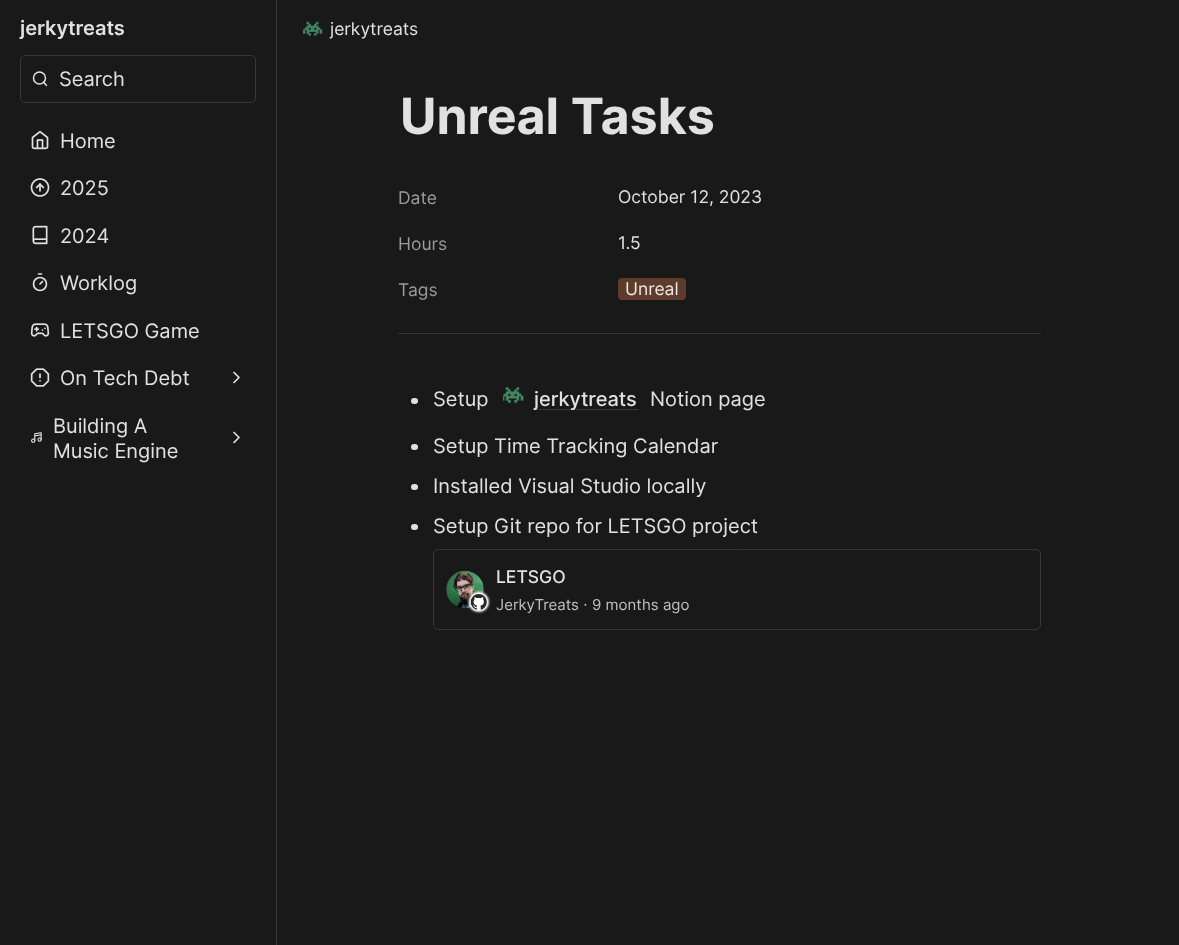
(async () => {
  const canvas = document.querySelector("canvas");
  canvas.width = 1179;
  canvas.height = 945;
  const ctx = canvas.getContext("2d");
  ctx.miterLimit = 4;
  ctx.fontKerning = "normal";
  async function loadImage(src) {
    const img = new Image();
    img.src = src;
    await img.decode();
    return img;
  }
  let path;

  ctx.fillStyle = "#191919";
  ctx.fillRect(0, 0, 1179, 945);
  ctx.fillStyle = "#373737";
  ctx.fillRect(276, 0, 1, 945);
  ctx.beginPath();
  ctx.roundRect(20.5, 55.5, 235, 47, 4.5);
  ctx.strokeStyle = "#373737";
  ctx.stroke();
  ctx.beginPath();
  ctx.arc(39.5, 78, 6, 0, Math.PI * 2);
  ctx.strokeStyle = "#e1e1e1";
  ctx.lineWidth = 1.5;
  ctx.stroke();
  path = new Path2D("M46.5 85.5L43.5 82");
  ctx.lineCap = "round";
  ctx.lineJoin = "round";
  ctx.stroke(path);
  ctx.drawImage(await loadImage("img/1.png"), 31, 130, 18, 20);
  ctx.drawImage(await loadImage("img/2.png"), 30, 178, 20, 19);
  ctx.drawImage(await loadImage("img/3.png"), 32, 225, 16, 20);
  path = new Path2D("M38.5 274H41.5M40 284L42.5 281.5");
  ctx.lineWidth = 1.7;
  ctx.stroke(path);
  ctx.beginPath();
  ctx.arc(40, 284, 6.5, 0, Math.PI * 2);
  ctx.stroke();
  ctx.drawImage(await loadImage("img/4.png"), 30, 323, 20, 14);
  ctx.drawImage(await loadImage("img/5.png"), 30, 368, 20, 19);
  path = new Path2D("M234 382.5L239 377.5L234 372.5");
  ctx.stroke(path);
  ctx.drawImage(await loadImage("img/6.png"), 31, 432, 11, 11);
  path = new Path2D("M234 442.5L239 437.5L234 432.5");
  ctx.stroke(path);
  ctx.drawImage(await loadImage("img/7.png"), 303, 21, 20, 15);
  ctx.fillStyle = "#5e3b2b";
  ctx.beginPath();
  ctx.roundRect(618, 278, 68, 22, 4);
  ctx.fill();
  ctx.fillStyle = "#373737";
  ctx.fillRect(398, 333, 643, 1);
  ctx.fillStyle = "#e1e1e1";
  ctx.beginPath();
  ctx.roundRect(411, 398, 7, 6, 3);
  ctx.fill();
  ctx.drawImage(await loadImage("img/8.png"), 503, 387, 21, 16);
  ctx.fillStyle = "#373737";
  ctx.fillRect(534, 409, 104, 1);
  ctx.fillStyle = "#e1e1e1";
  ctx.beginPath();
  ctx.roundRect(411, 444, 7, 6, 3);
  ctx.fill();
  ctx.beginPath();
  ctx.roundRect(411, 484, 7, 6, 3);
  ctx.fill();
  ctx.beginPath();
  ctx.roundRect(411, 524, 7, 6, 3);
  ctx.fill();
  ctx.beginPath();
  ctx.roundRect(433.5, 549.5, 607, 80, 4.5);
  ctx.strokeStyle = "#373737";
  ctx.lineWidth = 1;
  ctx.lineJoin = "miter";
  ctx.stroke();
  ctx.drawImage(await loadImage("img/9.png"), 446, 570, 38, 38);
  ctx.drawImage(await loadImage("img/10.png"), 467, 590, 24, 24);
  ctx.font = "600 20px Inter";
  ctx.fillText("jerkytreats", 20, 35);
  ctx.font = "20px Inter";
  for (const [text, x, y] of [
    ["Search", 59, 86],
    ["Home", 60, 148],
    ["2025", 60, 195],
    ["2024", 60, 243],
    ["Worklog", 60, 290],
    ["LETSGO Game", 60, 338],
    ["On Tech Debt", 60, 385],
    ["Building A", 53, 433],
    ["Music Engine", 53, 458],
  ]) {
    ctx.fillText(text, x, y);
  }
  ctx.font = "17.5px Inter";
  ctx.fillText("jerkytreats", 330, 35);
  ctx.font = "bold 50px Inter";
  ctx.fillText("Unreal Tasks", 400, 134);
  ctx.font = "17.5px Inter";
  ctx.fillStyle = "#9b9b9b";
  ctx.fillText("Date", 398, 204);
  ctx.fillStyle = "#e1e1e1";
  ctx.fillText("October 12, 2023", 618, 203);
  ctx.fillStyle = "#9b9b9b";
  ctx.fillText("Hours", 398, 250);
  ctx.fillStyle = "#e1e1e1";
  ctx.fillText("1.5", 618, 249);
  ctx.fillStyle = "#9b9b9b";
  ctx.fillText("Tags", 398, 296);
  ctx.fillStyle = "#ebe7e5";
  ctx.fillText("Unreal", 625, 295);
  ctx.font = "20px Inter";
  ctx.fillStyle = "#e1e1e1";
  ctx.fillText("Setup", 433, 406);
  ctx.font = "500 20px Inter";
  ctx.fillText("jerkytreats", 534, 406);
  ctx.font = "20px Inter";
  for (const [text, x, y] of [
    ["Notion page", 650, 406],
    ["Setup Time Tracking Calendar", 433, 453],
    ["Installed Visual Studio locally", 433, 493],
    ["Setup Git repo for LETSGO project", 433, 533],
  ]) {
    ctx.fillText(text, x, y);
  }
  ctx.font = "500 17.5px Inter";
  ctx.fillText("LETSGO", 496, 583);
  ctx.font = "15px Inter";
  ctx.fillStyle = "#bfbfbf";
  ctx.fillText("JerkyTreats", 496, 610);
  ctx.font = "15px DejaVu Sans";
  ctx.fillText("⋅", 583, 610);
  ctx.font = "15px Inter";
  ctx.fillText("9 months ago", 592, 610);
})();
